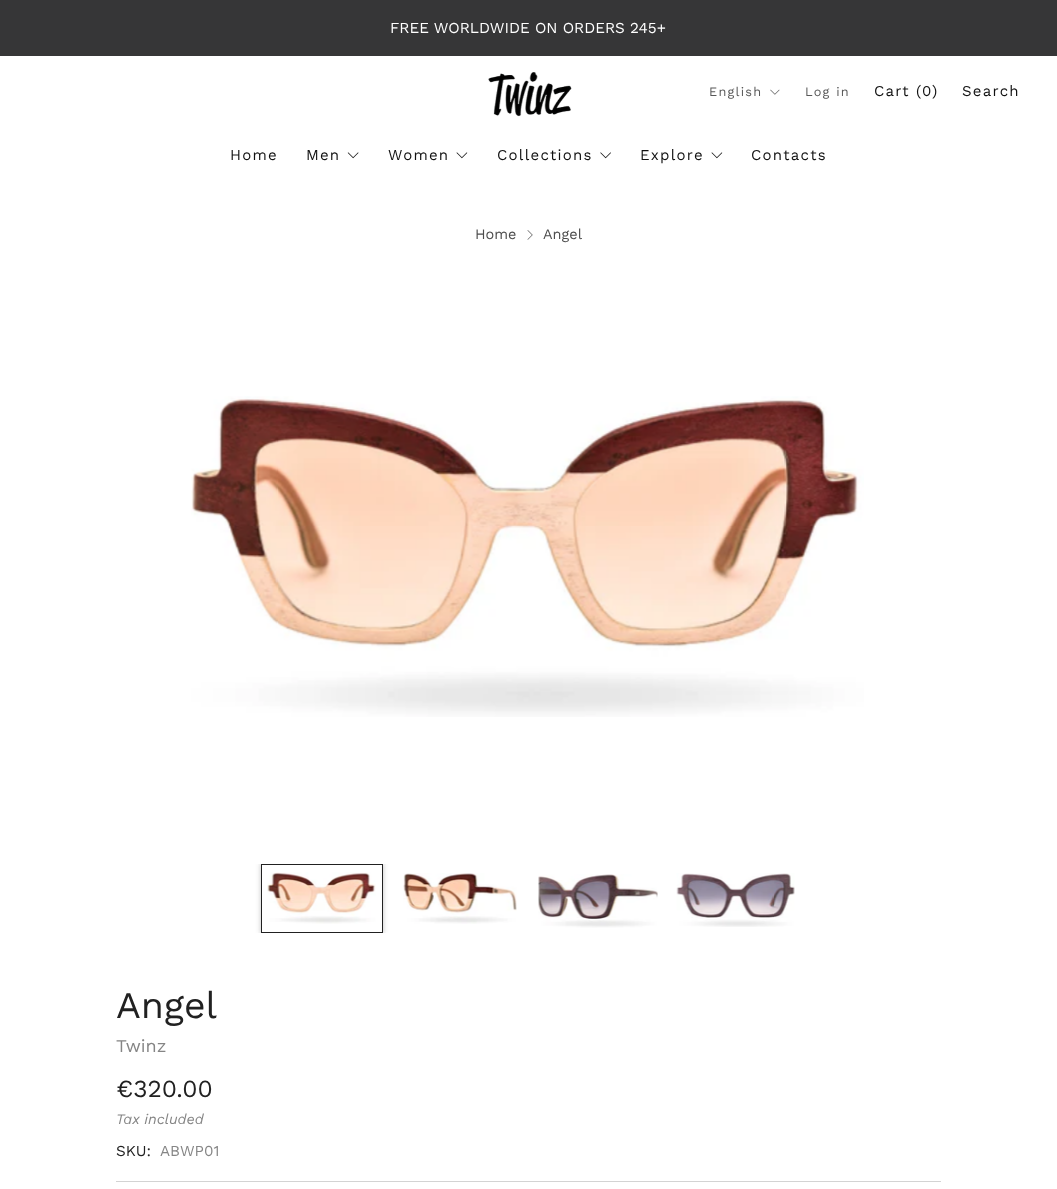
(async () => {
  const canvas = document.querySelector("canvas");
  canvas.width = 1057;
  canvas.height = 1189;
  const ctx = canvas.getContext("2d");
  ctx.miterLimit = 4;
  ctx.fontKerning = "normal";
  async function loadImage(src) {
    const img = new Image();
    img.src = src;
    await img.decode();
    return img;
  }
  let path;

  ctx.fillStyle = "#ffffff";
  ctx.fillRect(0, 0, 1057, 1189);
  ctx.fillStyle = "#363637";
  ctx.fillRect(0, 0, 1057, 56);
  ctx.drawImage(await loadImage("img/1.png"), 488, 72, 84, 45);
  ctx.drawImage(await loadImage("img/2.png"), 770, 89, 10, 6);
  ctx.drawImage(await loadImage("img/3.png"), 347, 152, 12, 7);
  ctx.drawImage(await loadImage("img/4.png"), 456, 152, 12, 7);
  ctx.drawImage(await loadImage("img/5.png"), 600, 152, 11, 7);
  ctx.drawImage(await loadImage("img/4.png"), 711, 152, 12, 7);
  ctx.drawImage(await loadImage("img/6.png"), 527, 230, 6, 10);
  ctx.drawImage(await loadImage("img/7.png"), 191, 396, 673, 321);
  ctx.save();
  ctx.beginPath();
  ctx.rect(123, 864, 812, 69);
  ctx.clip();
  path = new Path2D("M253 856H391V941H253ZM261 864H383V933H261Z");
  ctx.clip(path, "evenodd");
  ctx.fillStyle = "rgba(33, 33, 33, 0.2)";
  ctx.filter = "blur(2px)";
  ctx.beginPath();
  ctx.rect(260, 863, 124, 71);
  ctx.fill();
  ctx.filter = "none";
  ctx.restore();
  ctx.strokeStyle = "#212121";
  ctx.strokeRect(261.5, 864.5, 121, 68);
  ctx.drawImage(await loadImage("img/8.png"), 267, 872, 109, 52);
  ctx.drawImage(await loadImage("img/9.png"), 403, 873, 114, 51);
  ctx.drawImage(await loadImage("img/10.png"), 538, 874, 120, 54);
  ctx.drawImage(await loadImage("img/11.png"), 676, 873, 119, 54);
  ctx.fillStyle = "#d3d3d3";
  ctx.fillRect(116, 1181, 825, 1);
  ctx.font = "15.25px Work Sans";
  ctx.fillStyle = "#ffffff";
  ctx.fillText("FREE WORLDWIDE ON ORDERS 245+", 390, 33);
  ctx.letterSpacing = "1.25px";
  ctx.font = "12.75px Work Sans";
  ctx.fillStyle = "#585858";
  ctx.fillText("English", 709, 96);
  ctx.fillText("Log in", 805, 96);
  ctx.font = "15px Work Sans";
  ctx.fillStyle = "#111111";
  for (const [text, x, y] of [
    ["Cart (", 874, 96],
    ["0", 922, 96],
    [")", 932, 96],
    ["Search", 962, 96],
    ["Home", 230, 160],
    ["Men", 306, 160],
    ["Women", 388, 160],
    ["Collections", 497, 160],
    ["Explore", 640, 160],
    ["Contacts", 751, 160],
  ]) {
    ctx.fillText(text, x, y);
  }
  ctx.letterSpacing = "0px";
  ctx.font = "14.5px Work Sans";
  ctx.fillStyle = "#4d4d4d";
  ctx.fillText("Home", 475, 239);
  ctx.fillText("Angel", 543, 239);
  ctx.font = "37.5px Work Sans";
  ctx.fillStyle = "#212121";
  ctx.fillText("Angel", 116, 1018);
  ctx.font = "18px Work Sans";
  ctx.fillStyle = "#858585";
  ctx.fillText("Twinz", 116, 1052);
  ctx.font = "24.5px Work Sans";
  ctx.fillStyle = "#212121";
  ctx.fillText("€320.00", 116, 1097);
  ctx.font = "italic 14.5px Work Sans";
  ctx.fillStyle = "#858585";
  ctx.fillText("Tax included", 116, 1124);
  ctx.font = "15.25px Work Sans";
  ctx.fillStyle = "#212121";
  ctx.fillText("SKU:", 116, 1156);
  ctx.fillStyle = "#858585";
  ctx.fillText("ABWP01", 160, 1156);
})();
